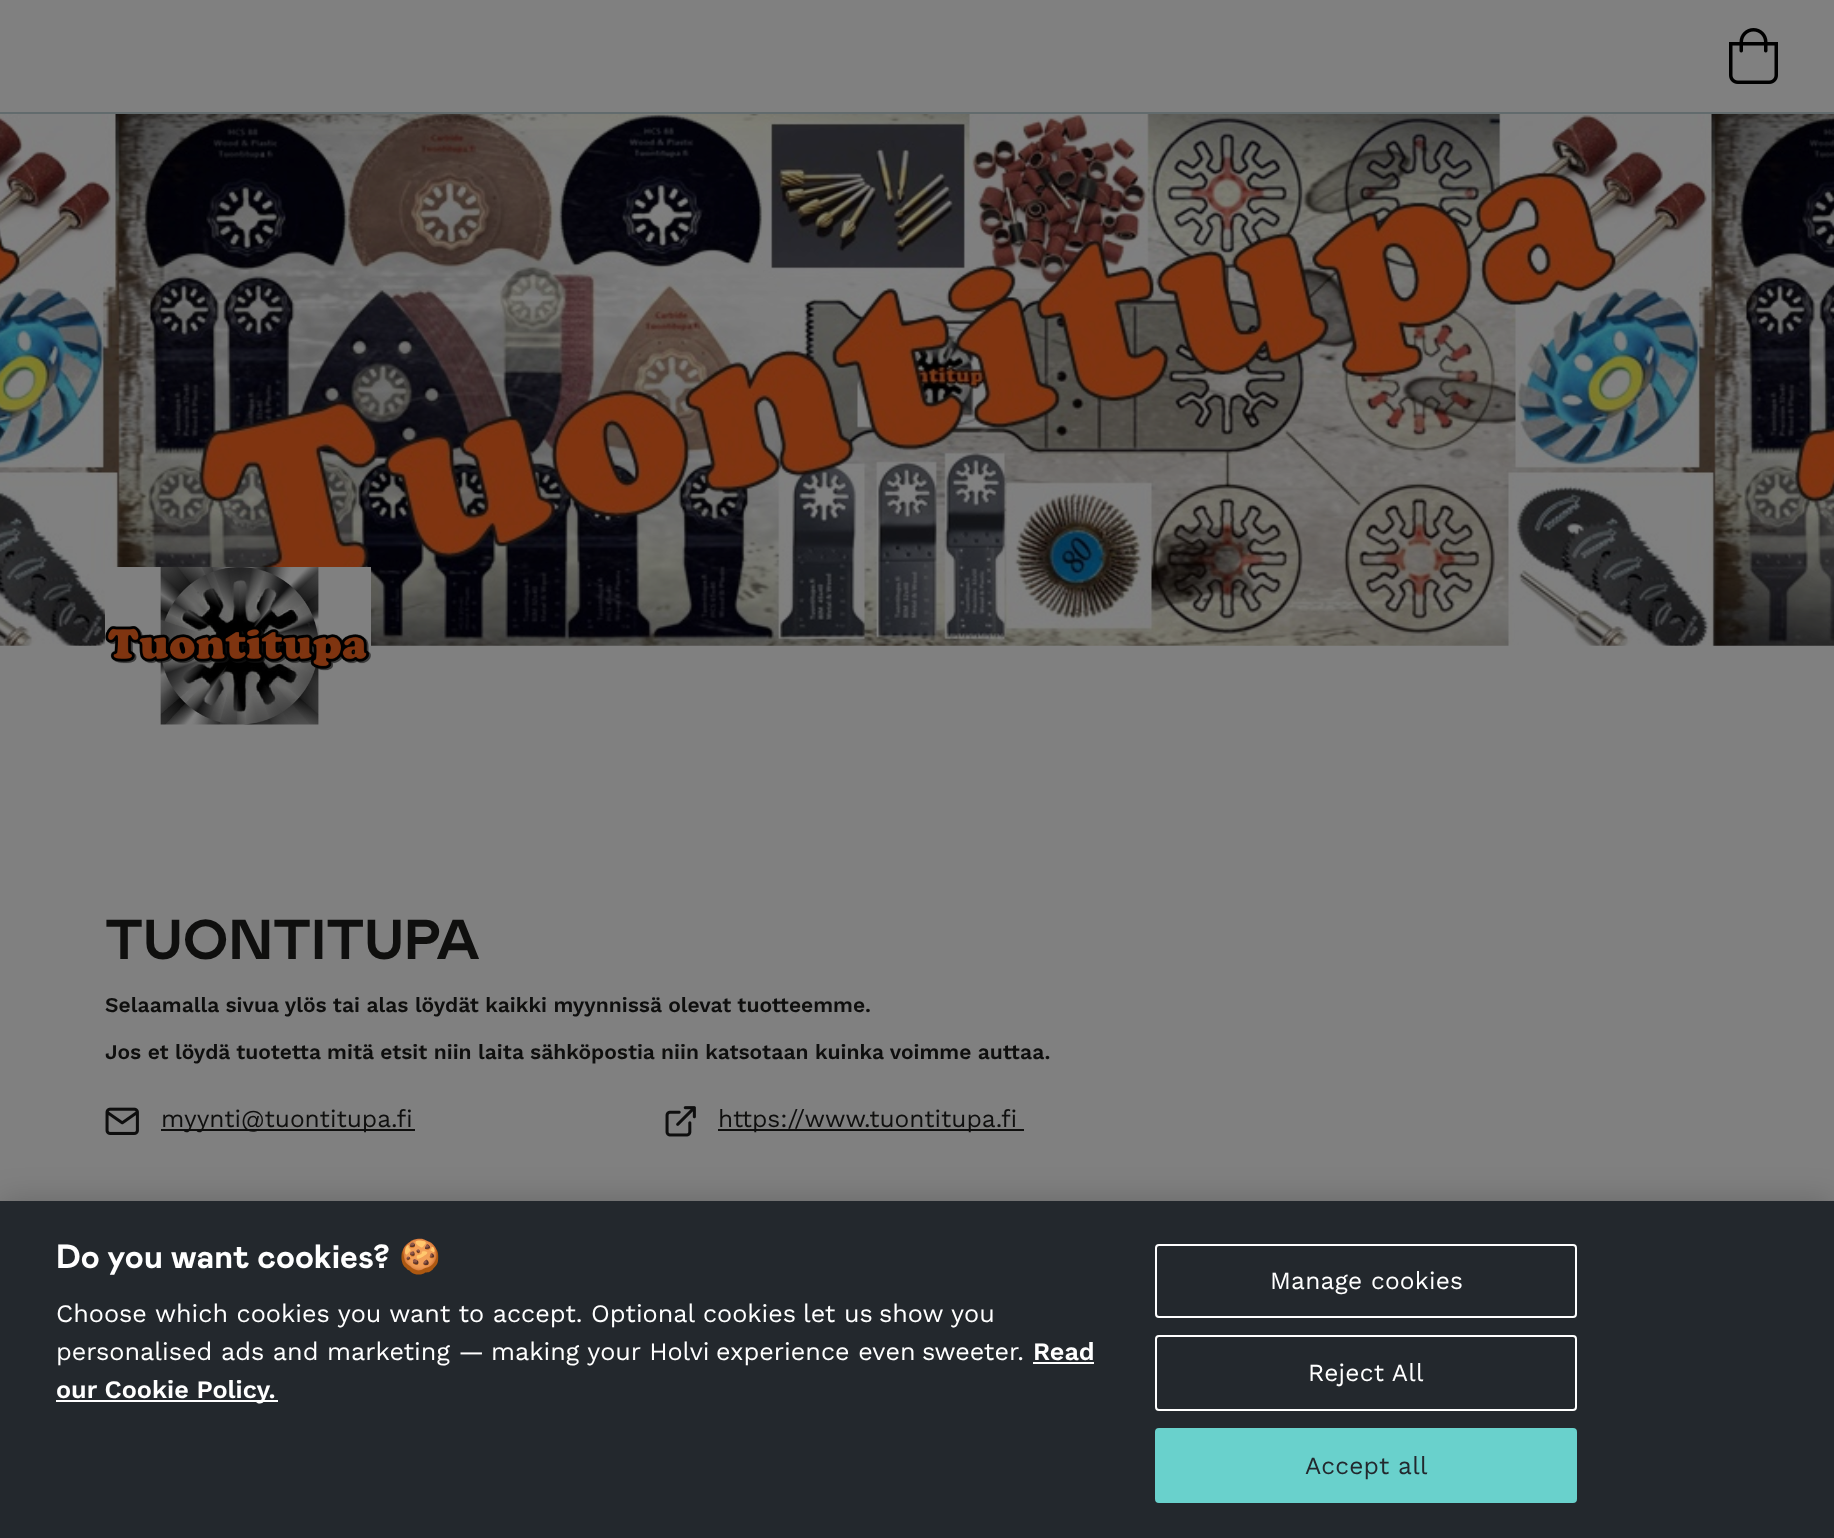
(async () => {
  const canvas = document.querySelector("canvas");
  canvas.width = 1834;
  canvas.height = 1538;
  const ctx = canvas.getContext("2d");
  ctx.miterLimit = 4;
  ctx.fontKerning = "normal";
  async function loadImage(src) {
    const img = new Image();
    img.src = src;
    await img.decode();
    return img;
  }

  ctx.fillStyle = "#808080";
  ctx.fillRect(0, 0, 1834, 1538);
  ctx.fillStyle = "#626b6d";
  ctx.fillRect(0, 112, 1834, 2);
  ctx.drawImage(await loadImage("img/1.png"), 1729, 28, 49, 56);
  ctx.drawImage(await loadImage("img/2.png"), 0, 114, 1834, 532);
  ctx.drawImage(await loadImage("img/3.png"), 105, 567, 266, 158);
  ctx.drawImage(await loadImage("img/4.png"), 105, 1107, 34, 28);
  ctx.fillStyle = "#0f0f0e";
  ctx.fillRect(161, 1129, 254, 2);
  ctx.drawImage(await loadImage("img/5.png"), 665, 1106, 31, 31);
  ctx.fillRect(718, 1129, 306, 2);
  ctx.fillStyle = "rgba(0, 0, 0, 0.2)";
  ctx.filter = "blur(16px)";
  ctx.beginPath();
  ctx.rect(0, 1201, 1834, 337);
  ctx.fill();
  ctx.filter = "none";
  for (const [x, y, w, h, color] of [
    [0, 1201, 1834, 337, "#23282d"],
    [1033, 1362, 61, 2, "#ffffff"],
    [56, 1400, 222, 2, "#ffffff"],
  ]) {
    ctx.fillStyle = color;
    ctx.fillRect(x, y, w, h);
  }
  ctx.beginPath();
  ctx.roundRect(1156, 1245, 420, 72, 3);
  ctx.strokeStyle = "#ffffff";
  ctx.lineWidth = 2;
  ctx.stroke();
  ctx.beginPath();
  ctx.roundRect(1156, 1336, 420, 74, 3);
  ctx.stroke();
  ctx.fillStyle = "#69d1cc";
  ctx.beginPath();
  ctx.roundRect(1156, 1429, 420, 73, 3);
  ctx.fill();
  ctx.strokeStyle = "#69d1cc";
  ctx.stroke();
  ctx.font = "bold 56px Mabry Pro";
  ctx.fillStyle = "#0f0f0e";
  ctx.fillText("TUONTITUPA", 105, 959);
  ctx.font = "600 21px Work Sans";
  ctx.fillText("Selaamalla sivua ylös tai alas löydät kaikki myynnissä olevat tuotteemme.", 105, 1012);
  ctx.fillText("Jos et löydä tuotetta mitä etsit niin laita sähköpostia niin katsotaan kuinka voimme auttaa.", 105, 1059);
  ctx.font = "24.5px Work Sans";
  ctx.fillText("myynti@tuontitupa.fi", 161, 1127);
  ctx.fillText("https://www.tuontitupa.fi", 718, 1127);
  ctx.font = "bold 33.5px Mabry Pro";
  ctx.fillStyle = "#ffffff";
  ctx.fillText("Do you want cookies?", 56, 1268);
  ctx.font = "bold 33.5px Noto Color Emoji";
  ctx.fillText("🍪", 399, 1268);
  ctx.font = "25.2px Work Sans";
  ctx.fillText("Choose which cookies you want to accept. Optional cookies", 56, 1322);
  ctx.fillText("let us", 803, 1322);
  ctx.fillText("show you", 879, 1322);
  ctx.fillText("personalised ads and marketing —", 56, 1360);
  ctx.fillText("making your Holvi", 491, 1360);
  ctx.fillText("experience even", 716, 1360);
  ctx.fillText("sweeter.", 922, 1360);
  ctx.font = "600 25.2px Work Sans";
  ctx.fillText("Read", 1033, 1360);
  ctx.fillText("our Cookie Policy.", 56, 1398);
  ctx.letterSpacing = "0.25px";
  ctx.font = "24.5px Work Sans";
  ctx.fillText("Manage cookies", 1270, 1289);
  ctx.fillText("Reject All", 1308, 1381);
  ctx.fillStyle = "#23282d";
  ctx.fillText("Accept all", 1305, 1474);
})();
